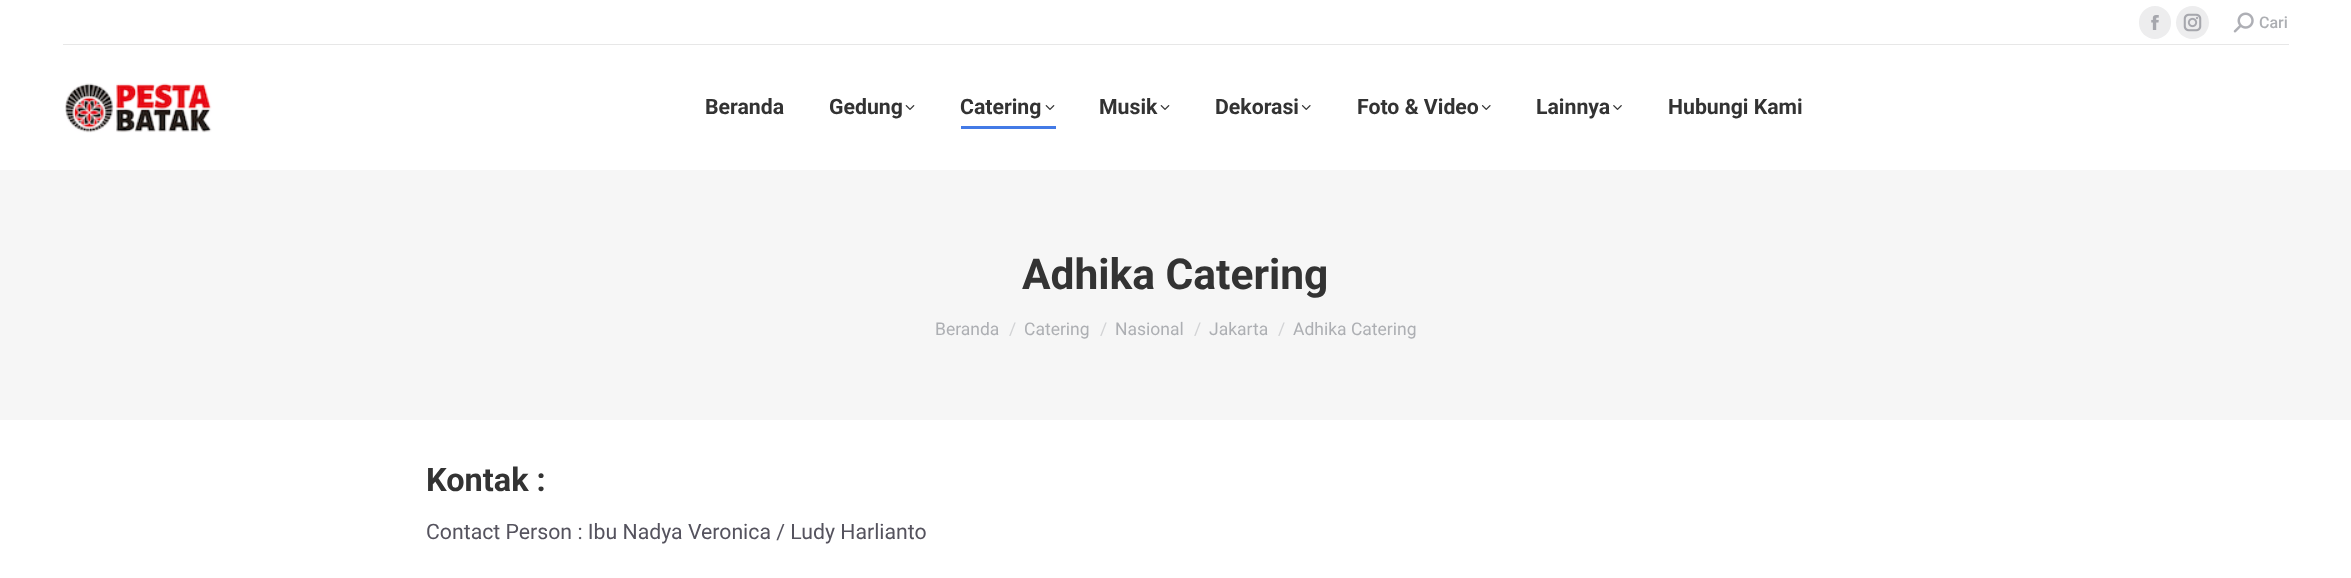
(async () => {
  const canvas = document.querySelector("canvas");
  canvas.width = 2351;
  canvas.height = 578;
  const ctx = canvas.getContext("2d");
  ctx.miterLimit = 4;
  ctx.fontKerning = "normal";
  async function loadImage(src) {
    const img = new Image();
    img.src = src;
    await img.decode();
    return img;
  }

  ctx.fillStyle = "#ffffff";
  ctx.fillRect(0, 0, 2351, 578);
  ctx.fillStyle = "#ededee";
  ctx.beginPath();
  ctx.roundRect(2139, 6, 32, 33, 16);
  ctx.fill();
  ctx.drawImage(await loadImage("img/1.png"), 2151, 15, 8, 15);
  ctx.beginPath();
  ctx.arc(2192.5, 22.5, 16.5, 0, Math.PI * 2);
  ctx.fill();
  ctx.drawImage(await loadImage("img/2.png"), 2183, 13, 19, 19);
  ctx.drawImage(await loadImage("img/3.png"), 2233, 12, 21, 21);
  ctx.fillStyle = "#e7e7e7";
  ctx.fillRect(63, 44, 2226, 1);
  ctx.drawImage(await loadImage("img/4.png"), 65, 83, 147, 50);
  ctx.drawImage(await loadImage("img/5.png"), 905, 105, 10, 5);
  ctx.drawImage(await loadImage("img/5.png"), 1045, 105, 10, 5);
  ctx.fillStyle = "#437ae6";
  ctx.fillRect(961, 126, 95, 3);
  ctx.drawImage(await loadImage("img/5.png"), 1160, 105, 10, 5);
  ctx.drawImage(await loadImage("img/6.png"), 1301, 105, 10, 5);
  ctx.drawImage(await loadImage("img/6.png"), 1481, 105, 10, 5);
  ctx.drawImage(await loadImage("img/7.png"), 1613, 105, 9, 5);
  ctx.fillStyle = "#f6f6f6";
  ctx.fillRect(0, 170, 2351, 250);
  ctx.font = "500 16px Roboto";
  ctx.fillStyle = "#adafb3";
  ctx.fillText("Cari", 2259, 28);
  ctx.font = "bold 21.25px Roboto";
  ctx.fillStyle = "#333333";
  for (const [text, x, y] of [
    ["Beranda", 705, 114],
    ["Gedung", 829, 114],
    ["Catering", 960, 114],
    ["Musik", 1099, 114],
    ["Dekorasi", 1215, 114],
    ["Foto & Video", 1357, 114],
    ["Lainnya", 1536, 114],
    ["Hubungi Kami", 1668, 114],
  ]) {
    ctx.fillText(text, x, y);
  }
  ctx.font = "bold 42.5px Roboto";
  ctx.fillText("Adhika Catering", 1022, 289);
  ctx.font = "17.5px Roboto";
  ctx.fillStyle = "#adafb3";
  ctx.fillText("Beranda", 935, 335);
  ctx.fillStyle = "#d2d3d5";
  ctx.fillText("/", 1009, 335);
  ctx.fillStyle = "#adafb3";
  ctx.fillText("Catering", 1024, 335);
  ctx.fillStyle = "#d2d3d5";
  ctx.fillText("/", 1100, 335);
  ctx.fillStyle = "#adafb3";
  ctx.fillText("Nasional", 1115, 335);
  ctx.fillStyle = "#d2d3d5";
  ctx.fillText("/", 1194, 335);
  ctx.fillStyle = "#adafb3";
  ctx.fillText("Jakarta", 1209, 335);
  ctx.fillStyle = "#d2d3d5";
  ctx.fillText("/", 1278, 335);
  ctx.fillStyle = "#adafb3";
  ctx.fillText("Adhika Catering", 1293, 335);
  ctx.font = "bold 32.5px Roboto";
  ctx.fillStyle = "#333333";
  ctx.fillText("Kontak :", 426, 491);
  ctx.font = "21.25px Roboto";
  ctx.fillStyle = "#55535e";
  ctx.fillText("Contact Person : Ibu Nadya Veronica / Ludy Harlianto", 426, 539);
})();
